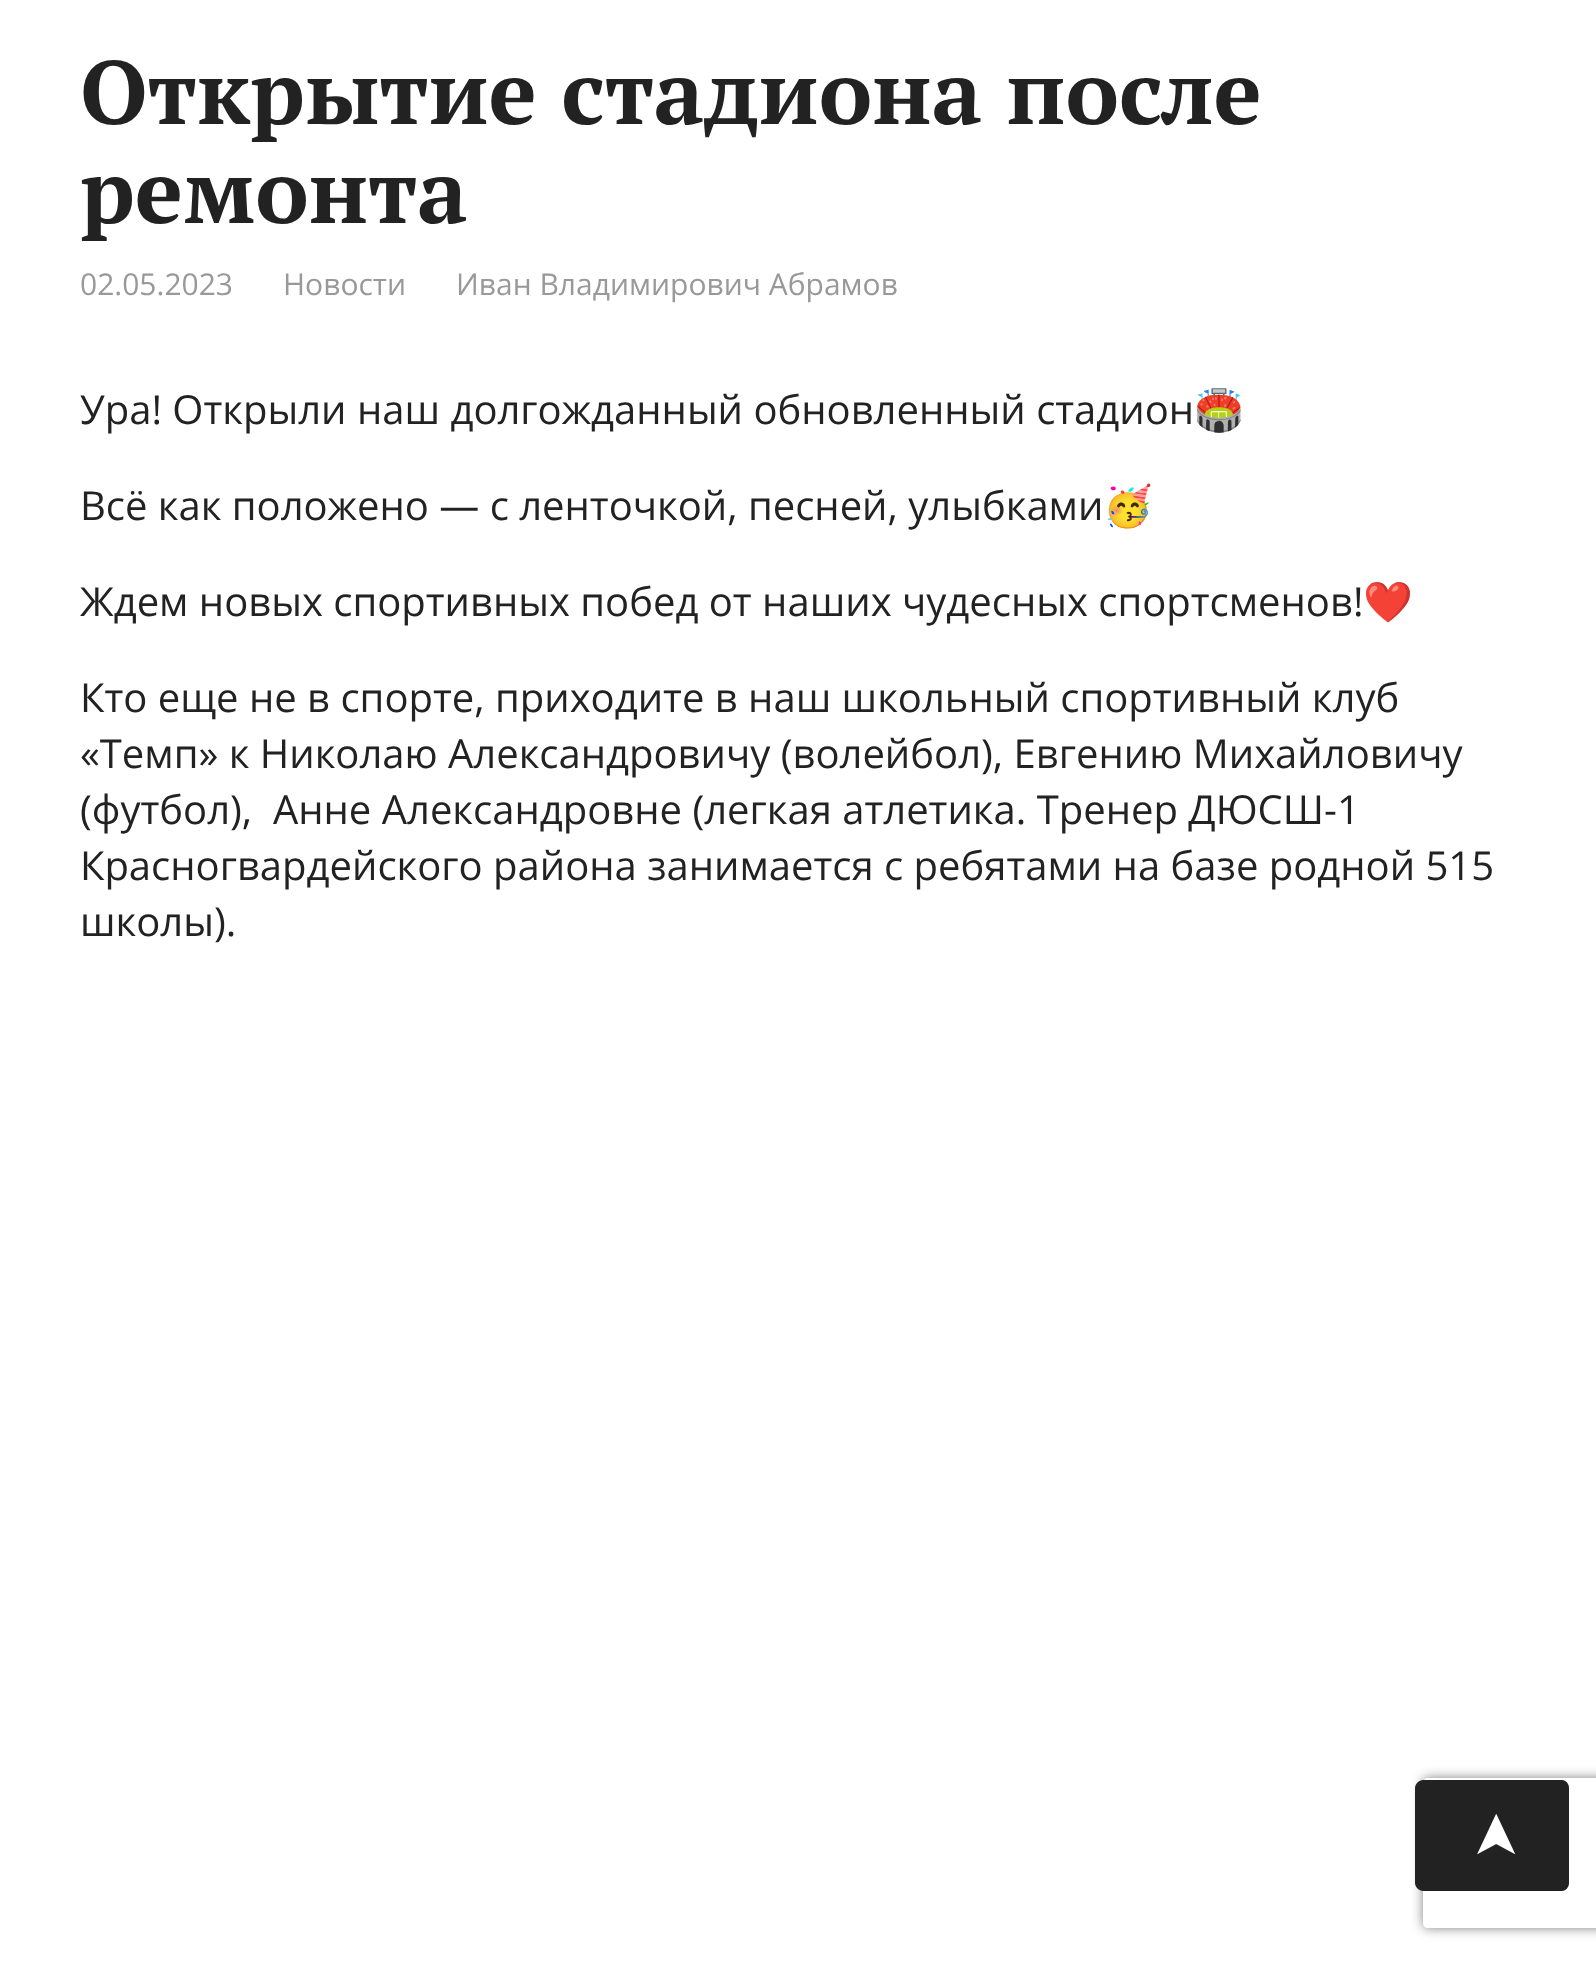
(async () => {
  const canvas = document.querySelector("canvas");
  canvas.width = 1596;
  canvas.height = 1961;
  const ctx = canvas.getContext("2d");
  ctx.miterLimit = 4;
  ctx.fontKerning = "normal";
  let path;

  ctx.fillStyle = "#ffffff";
  ctx.fillRect(0, 0, 1596, 1961);
  ctx.save();
  path = new Path2D("M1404 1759H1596V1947H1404ZM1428 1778H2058C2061 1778 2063 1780 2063 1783V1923C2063 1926 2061 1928 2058 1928H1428C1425 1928 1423 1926 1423 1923V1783C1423 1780 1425 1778 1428 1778Z");
  ctx.clip(path, "evenodd");
  ctx.fillStyle = "#808080";
  ctx.filter = "blur(6px)";
  ctx.beginPath();
  ctx.roundRect(1423, 1778, 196, 150, 5);
  ctx.fill();
  ctx.filter = "none";
  ctx.restore();
  ctx.fillStyle = "#222222";
  path = new Path2D("M1415 1883V1788C1415 1784 1419 1780 1423 1780H1562C1566 1780 1569 1784 1569 1788V1883C1569 1887 1566 1891 1562 1891H1423C1419 1891 1415 1887 1415 1883Z");
  ctx.fill(path);
  ctx.font = "bold 90px PT Serif";
  ctx.fillText("Открытие стадиона после", 80, 124);
  ctx.fillText("ремонта", 80, 223);
  ctx.font = "30px Open Sans";
  ctx.fillStyle = "#999999";
  for (const [text, x, y] of [
    ["02.05.2023", 80, 295],
    ["Новости", 283, 295],
    ["Иван Владимирович Абрамов", 456, 295],
  ]) {
    ctx.fillText(text, x, y);
  }
  ctx.font = "40px Open Sans";
  ctx.fillStyle = "#222222";
  ctx.fillText("Ура! Открыли наш долгожданный обновленный стадион", 80, 424);
  ctx.font = "40px Noto Color Emoji";
  ctx.fillText("🏟️", 1194, 424);
  ctx.font = "40px Open Sans";
  ctx.fillText("Всё как положено — с ленточкой, песней, улыбками", 80, 520);
  ctx.font = "40px Noto Color Emoji";
  ctx.fillText("🥳", 1103, 520);
  ctx.font = "40px Open Sans";
  ctx.fillText("Ждем новых спортивных побед от наших чудесных спортсменов!", 80, 616);
  ctx.font = "40px Noto Color Emoji";
  ctx.fillText("❤️", 1363, 616);
  ctx.font = "40px Open Sans";
  for (const [text, x, y] of [
    ["Кто еще не в спорте, приходите в наш школьный спортивный клуб", 80, 712],
    ["«Темп» к Николаю Александровичу (волейбол), Евгению Михайловичу", 80, 768],
    ["(футбол),  Анне Александровне (легкая атлетика. Тренер ДЮСШ-1", 80, 824],
    ["Красногвардейского района занимается с ребятами на базе родной 515", 80, 880],
    ["школы).", 80, 936],
  ]) {
    ctx.fillText(text, x, y);
  }
  ctx.font = "60px DejaVu Sans";
  ctx.fillStyle = "#ffffff";
  ctx.save();
  ctx.translate(1515, 1861);
  ctx.rotate(-90 * Math.PI / 180);
  ctx.fillText("➤", 0, 0);
  ctx.restore();
})();
